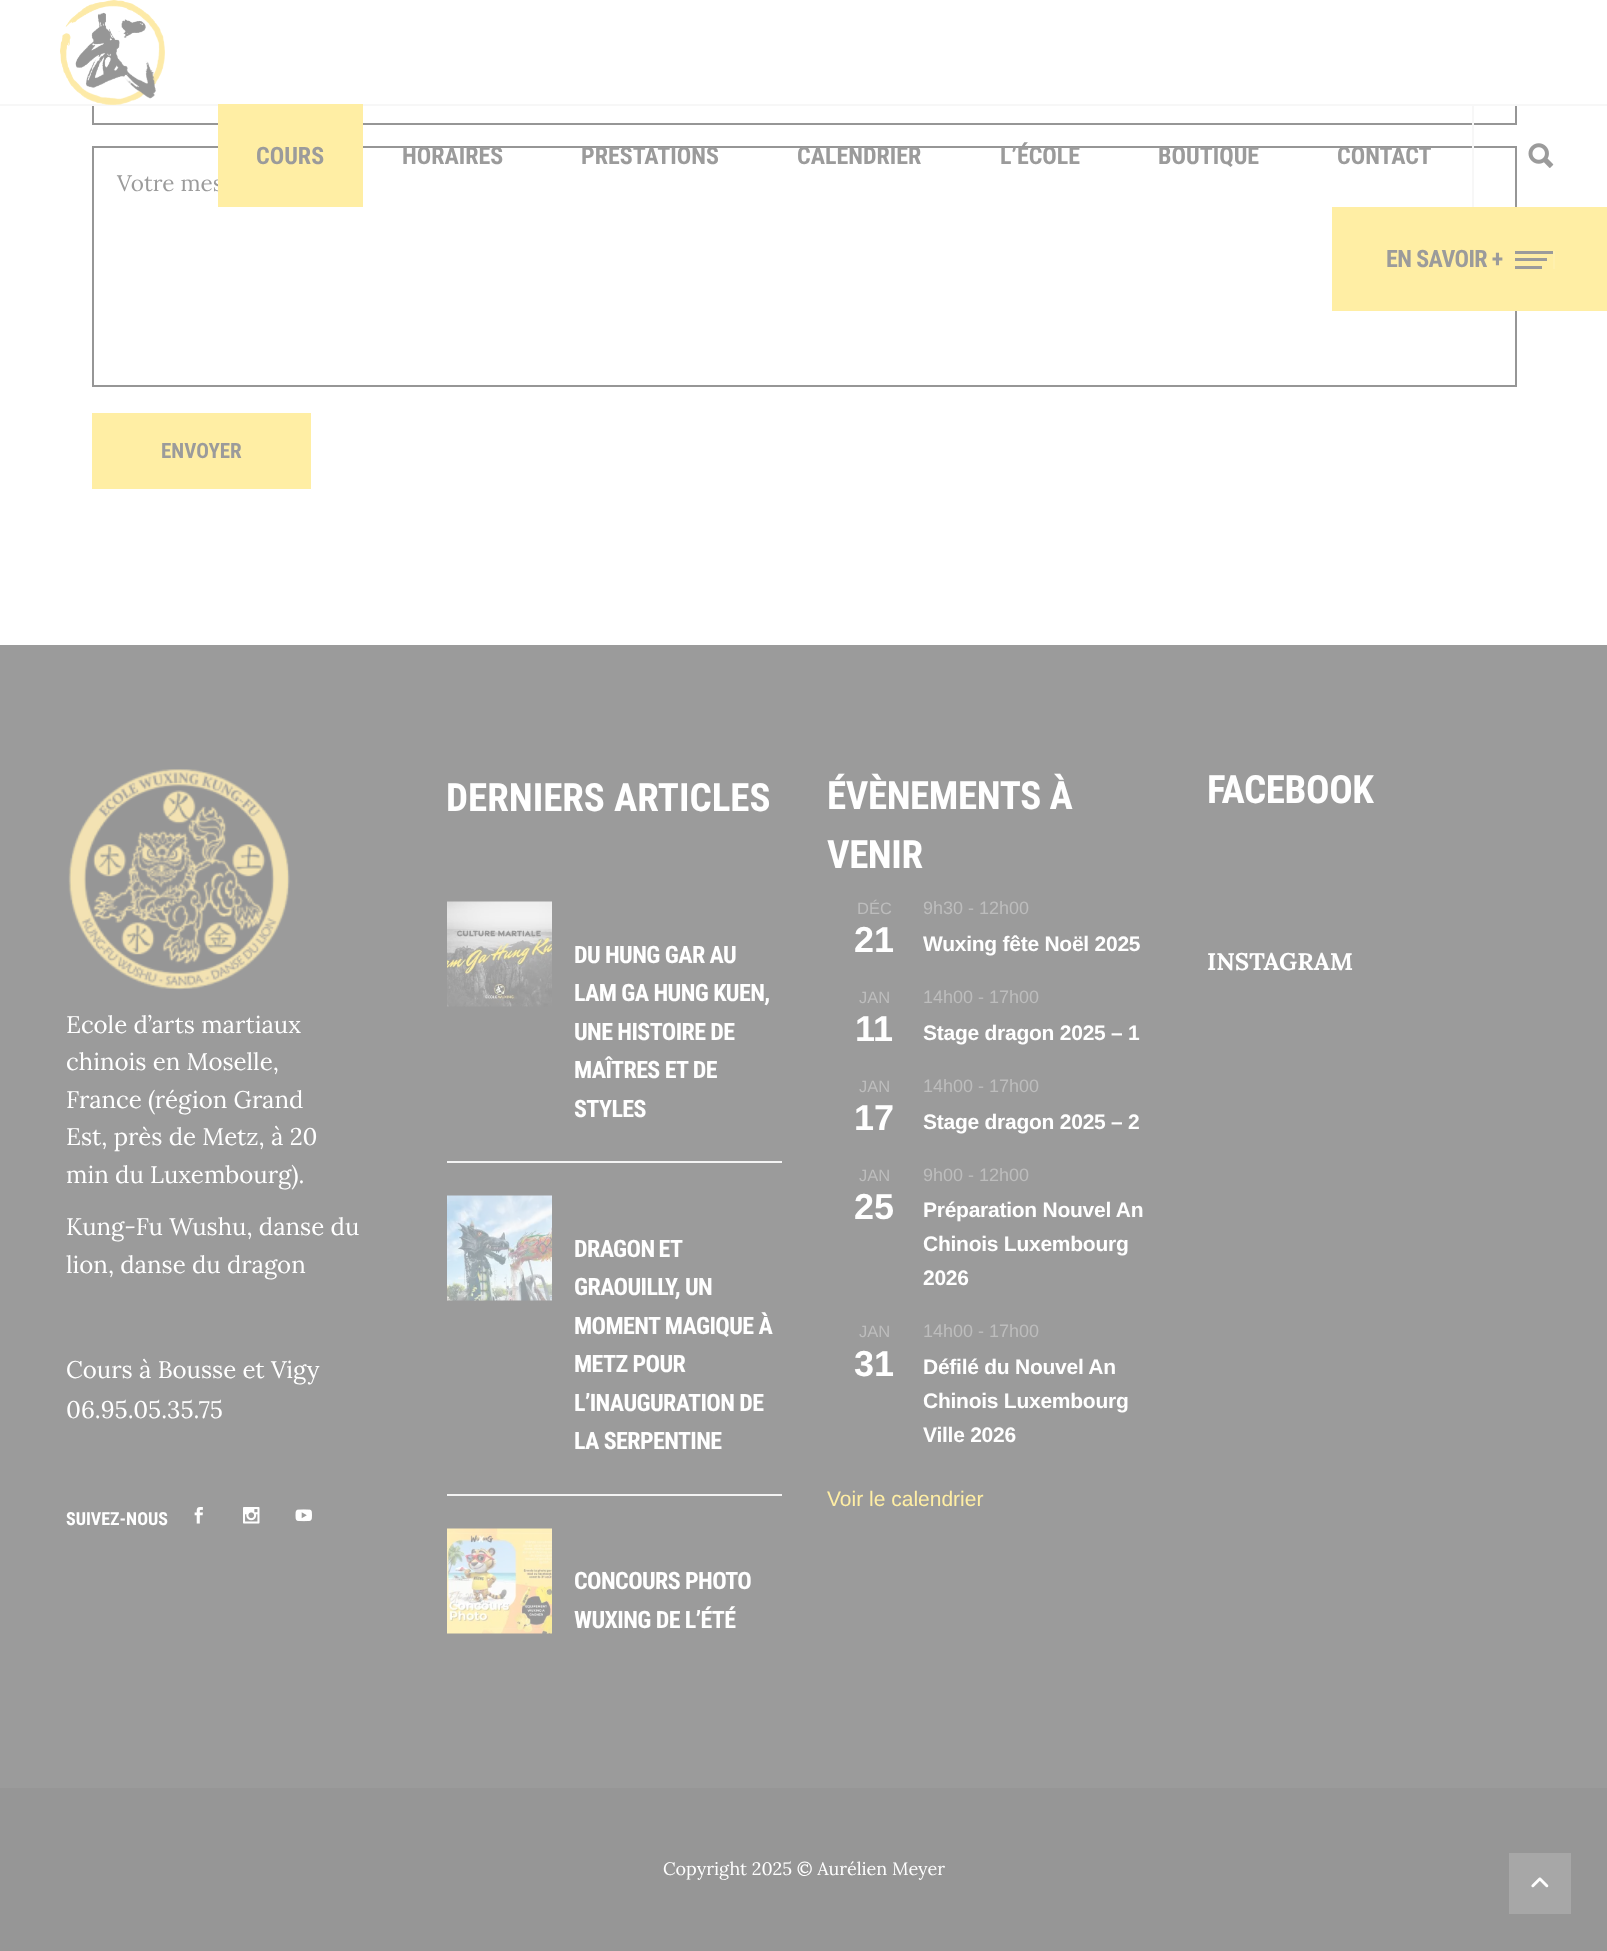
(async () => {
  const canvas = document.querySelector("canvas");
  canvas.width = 1607;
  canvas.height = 1951;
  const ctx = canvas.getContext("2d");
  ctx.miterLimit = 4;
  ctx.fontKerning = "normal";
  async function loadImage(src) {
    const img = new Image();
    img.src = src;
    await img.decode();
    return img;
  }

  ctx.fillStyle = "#ffffff";
  ctx.fillRect(0, 0, 1607, 1951);
  ctx.strokeStyle = "#969696";
  ctx.lineWidth = 2;
  ctx.strokeRect(93, 51, 1423, 73);
  ctx.strokeRect(93, 147, 1423, 239);
  for (const [x, y, w, h, color] of [
    [92, 413, 219, 76, "#ffeea4"],
    [92, 50, 1425, 54, "#ffffff"],
    [0, 104, 1607, 2, "#f7f7f7"],
  ]) {
    ctx.fillStyle = color;
    ctx.fillRect(x, y, w, h);
  }
  ctx.drawImage(await loadImage("img/1.png"), 60, 0, 105, 105);
  ctx.fillRect(1472, 104, 2, 103);
  ctx.drawImage(await loadImage("img/2.png"), 1528, 143, 26, 25);
  for (const [x, y, w, h, color] of [
    [1332, 207, 275, 104, "#ffeea4"],
    [1553, 251, 2, 18, "#fff0ad"],
    [1515, 251, 38, 3, "#9b9b9b"],
    [1515, 258, 32, 3, "#9b9b9b"],
    [1515, 266, 27, 3, "#9b9b9b"],
    [0, 645, 1607, 1143, "#9b9b9b"],
  ]) {
    ctx.fillStyle = color;
    ctx.fillRect(x, y, w, h);
  }
  ctx.drawImage(await loadImage("img/3.png"), 68, 769, 222, 221);
  ctx.drawImage(await loadImage("img/4.png"), 194, 1507, 9, 17);
  ctx.drawImage(await loadImage("img/5.png"), 243, 1507, 17, 17);
  ctx.drawImage(await loadImage("img/6.png"), 295, 1509, 17, 13);
  ctx.fillStyle = "#f4f4f4";
  ctx.fillRect(447, 1161, 335, 2);
  ctx.drawImage(await loadImage("img/7.png"), 447, 901, 105, 106);
  ctx.fillRect(447, 1494, 335, 2);
  ctx.drawImage(await loadImage("img/8.png"), 447, 1195, 105, 106);
  ctx.drawImage(await loadImage("img/9.png"), 447, 1528, 105, 106);
  ctx.fillStyle = "#969696";
  ctx.fillRect(0, 1788, 1607, 163);
  ctx.fillStyle = "#a7a7a7";
  ctx.fillRect(1509, 1853, 62, 61);
  ctx.drawImage(await loadImage("img/10.png"), 1531, 1877, 18, 11);
  ctx.font = "22.5px Lora";
  ctx.fillStyle = "#9b9b9b";
  ctx.fillText("Votre mes", 117, 191);
  ctx.font = "bold 21px Roboto Condensed";
  ctx.fillText("ENVOYER", 161, 458);
  ctx.fillStyle = "#ffeea4";
  ctx.fillRect(218, 104, 145, 103);
  ctx.font = "bold 24px Roboto Condensed";
  ctx.fillStyle = "#9b9b9b";
  for (const [text, x, y] of [
    ["L’ÉCOLE", 1000, 164],
    ["COURS", 256, 164],
    ["HORAIRES", 402, 164],
    ["PRESTATIONS", 581, 164],
    ["CALENDRIER", 797, 164],
    ["BOUTIQUE", 1158, 164],
    ["CONTACT", 1337, 164],
  ]) {
    ctx.fillText(text, x, y);
  }
  ctx.letterSpacing = "-0.6px";
  ctx.fillText("EN SAVOIR +", 1386, 267);
  ctx.letterSpacing = "0px";
  ctx.font = "24px Lora";
  ctx.fillStyle = "#ffffff";
  for (const [text, x, y] of [
    ["Ecole d’arts martiaux", 66, 1033],
    ["chinois en Moselle,", 66, 1070],
    ["France (région Grand", 66, 1108],
    ["Est, près de Metz, à 20", 66, 1145],
    ["min du Luxembourg).", 66, 1183],
    ["Kung-Fu Wushu, danse du", 66, 1235],
    ["lion, danse du dragon", 66, 1273],
    ["Cours à Bousse et Vigy", 66, 1378],
    ["06.95.05.35.75", 66, 1418],
  ]) {
    ctx.fillText(text, x, y);
  }
  ctx.font = "bold 18px Roboto Condensed";
  ctx.fillText("SUIVEZ-NOUS", 66, 1525);
  ctx.font = "bold 39px Roboto Condensed";
  ctx.fillText("DERNIERS ARTICLES", 446, 811);
  ctx.letterSpacing = "-0.6px";
  ctx.font = "bold 24px Roboto Condensed";
  for (const [text, x, y] of [
    ["DU HUNG GAR AU", 574, 963],
    ["LAM GA HUNG KUEN,", 574, 1001],
    ["UNE HISTOIRE DE", 574, 1040],
    ["MAÎTRES ET DE", 574, 1078],
    ["STYLES", 574, 1117],
  ]) {
    ctx.fillText(text, x, y);
  }
  ctx.wordSpacing = "-1px";
  ctx.fillText("DRAGON ET", 574, 1257);
  ctx.wordSpacing = "0px";
  for (const [text, x, y] of [
    ["GRAOUILLY, UN", 574, 1295],
    ["MOMENT MAGIQUE À", 574, 1334],
    ["METZ POUR", 574, 1372],
    ["L’INAUGURATION DE", 574, 1411],
    ["LA SERPENTINE", 574, 1449],
    ["CONCOURS PHOTO", 574, 1589],
    ["WUXING DE L’ÉTÉ", 574, 1628],
  ]) {
    ctx.fillText(text, x, y);
  }
  ctx.letterSpacing = "-0.4px";
  ctx.font = "bold 39px Roboto Condensed";
  ctx.fillText("ÉVÈNEMENTS À", 827, 809);
  ctx.fillText("VENIR", 827, 868);
  ctx.letterSpacing = "0px";
  ctx.font = "16.5px Liberation Sans";
  ctx.fillStyle = "#bdbdbd";
  ctx.fillText("DÉC", 857, 914);
  ctx.font = "bold 36px Liberation Sans";
  ctx.fillStyle = "#ffffff";
  ctx.fillText("21", 854, 952);
  ctx.font = "18px Liberation Sans";
  ctx.fillStyle = "#bdbdbd";
  ctx.fillText("9h30 - 12h00", 923, 914);
  ctx.letterSpacing = "-0.25px";
  ctx.font = "bold 21px Liberation Sans";
  ctx.fillStyle = "#ffffff";
  ctx.fillText("Wuxing fête Noël 2025", 923, 951);
  ctx.letterSpacing = "0px";
  ctx.font = "16.5px Liberation Sans";
  ctx.fillStyle = "#bdbdbd";
  ctx.fillText("JAN", 859, 1003);
  ctx.font = "bold 36px Liberation Sans";
  ctx.fillStyle = "#ffffff";
  ctx.fillText("11", 855, 1041);
  ctx.font = "18px Liberation Sans";
  ctx.fillStyle = "#bdbdbd";
  ctx.fillText("14h00 - 17h00", 923, 1003);
  ctx.letterSpacing = "-0.25px";
  ctx.font = "bold 21px Liberation Sans";
  ctx.fillStyle = "#ffffff";
  ctx.fillText("Stage dragon 2025 – 1", 923, 1040);
  ctx.letterSpacing = "0px";
  ctx.font = "16.5px Liberation Sans";
  ctx.fillStyle = "#bdbdbd";
  ctx.fillText("JAN", 859, 1092);
  ctx.font = "bold 36px Liberation Sans";
  ctx.fillStyle = "#ffffff";
  ctx.fillText("17", 854, 1130);
  ctx.font = "18px Liberation Sans";
  ctx.fillStyle = "#bdbdbd";
  ctx.fillText("14h00 - 17h00", 923, 1092);
  ctx.letterSpacing = "-0.25px";
  ctx.font = "bold 21px Liberation Sans";
  ctx.fillStyle = "#ffffff";
  ctx.fillText("Stage dragon 2025 – 2", 923, 1129);
  ctx.letterSpacing = "0px";
  ctx.font = "16.5px Liberation Sans";
  ctx.fillStyle = "#bdbdbd";
  ctx.fillText("JAN", 859, 1181);
  ctx.font = "bold 36px Liberation Sans";
  ctx.fillStyle = "#ffffff";
  ctx.fillText("25", 854, 1219);
  ctx.font = "18px Liberation Sans";
  ctx.fillStyle = "#bdbdbd";
  ctx.fillText("9h00 - 12h00", 923, 1181);
  ctx.letterSpacing = "-0.25px";
  ctx.font = "bold 21px Liberation Sans";
  ctx.fillStyle = "#ffffff";
  for (const [text, x, y] of [
    ["Préparation Nouvel An", 923, 1217],
    ["Chinois Luxembourg", 923, 1251],
    ["2026", 923, 1285],
  ]) {
    ctx.fillText(text, x, y);
  }
  ctx.letterSpacing = "0px";
  ctx.font = "16.5px Liberation Sans";
  ctx.fillStyle = "#bdbdbd";
  ctx.fillText("JAN", 859, 1337);
  ctx.font = "bold 36px Liberation Sans";
  ctx.fillStyle = "#ffffff";
  ctx.fillText("31", 854, 1376);
  ctx.font = "18px Liberation Sans";
  ctx.fillStyle = "#bdbdbd";
  ctx.fillText("14h00 - 17h00", 923, 1337);
  ctx.letterSpacing = "-0.25px";
  ctx.font = "bold 21px Liberation Sans";
  ctx.fillStyle = "#ffffff";
  for (const [text, x, y] of [
    ["Défilé du Nouvel An", 923, 1374],
    ["Chinois Luxembourg", 923, 1408],
    ["Ville 2026", 923, 1442],
  ]) {
    ctx.fillText(text, x, y);
  }
  ctx.letterSpacing = "0px";
  ctx.font = "21px Liberation Sans";
  ctx.fillStyle = "#ffeea4";
  ctx.fillText("Voir le calendrier", 827, 1506);
  ctx.letterSpacing = "-0.4px";
  ctx.font = "bold 39px Roboto Condensed";
  ctx.fillStyle = "#ffffff";
  ctx.fillText("FACEBOOK", 1207, 803);
  ctx.letterSpacing = "0px";
  ctx.font = "bold 24px Lora";
  ctx.fillText("INSTAGRAM", 1207, 970);
  ctx.font = "18px Lora";
  ctx.fillText("Copyright 2025 © Aurélien Meyer", 663, 1875);
})();
